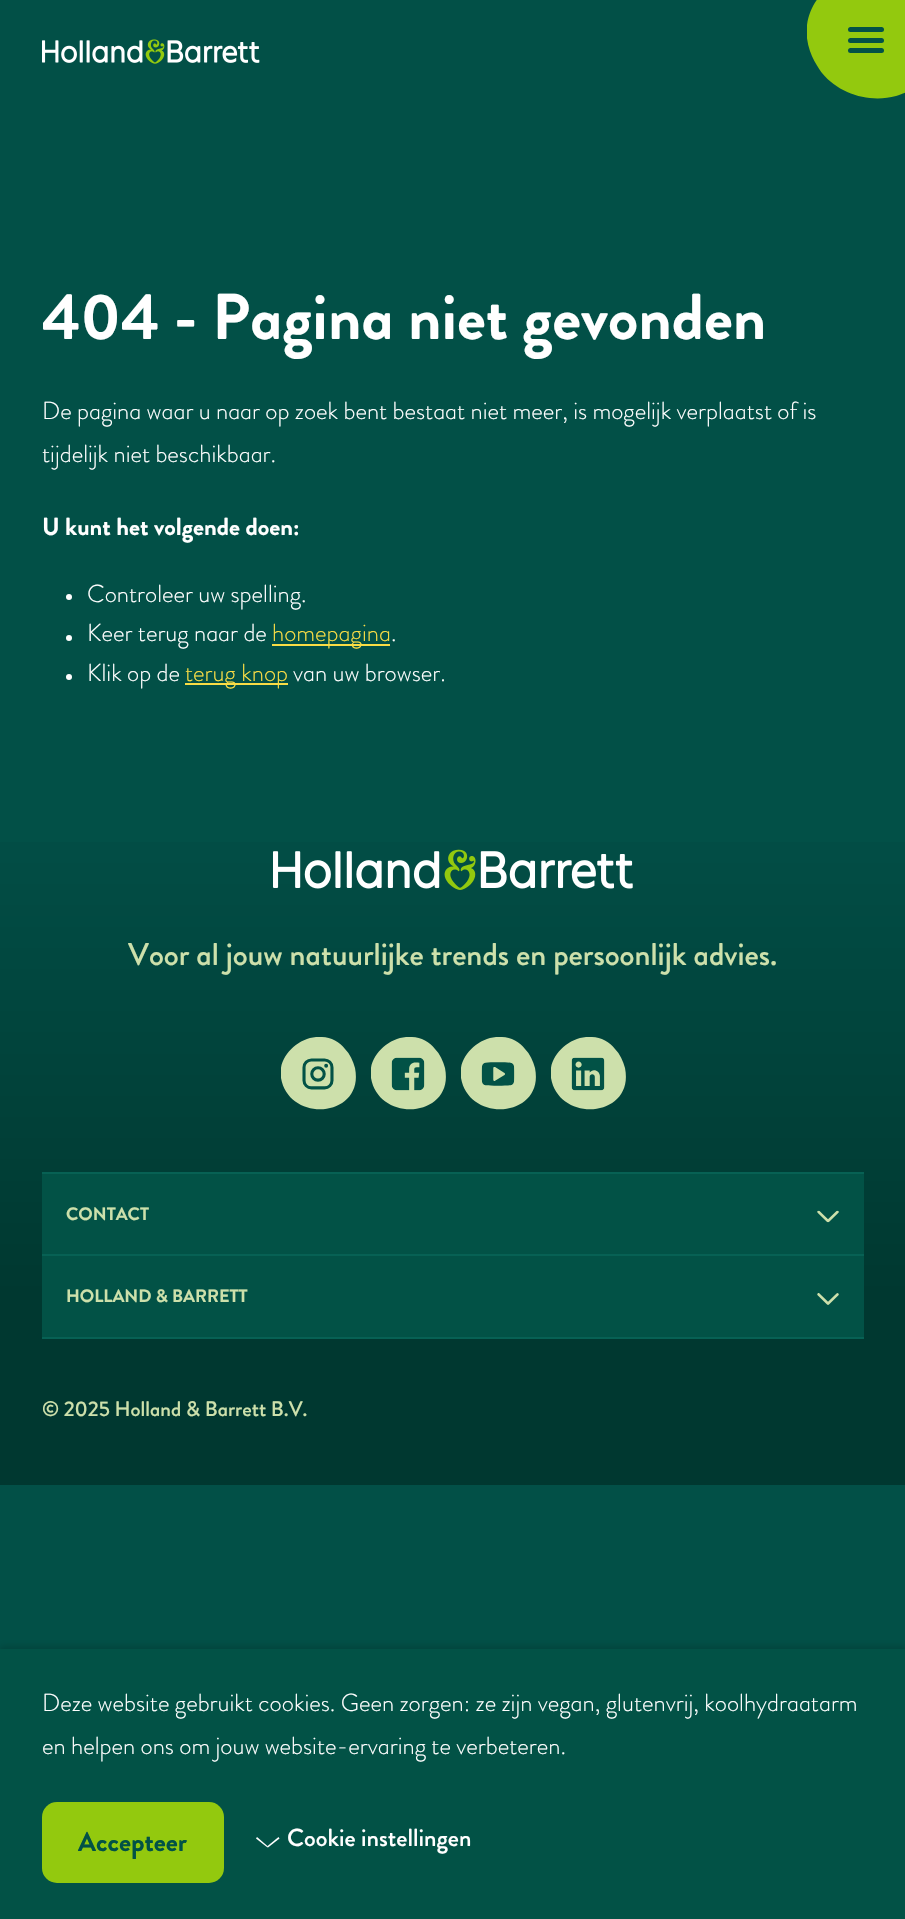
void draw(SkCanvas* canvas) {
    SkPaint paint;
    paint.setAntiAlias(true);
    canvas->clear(0xFF025047);
    canvas->save();
    canvas->clipRect(SkRect::MakeXYWH(807, 0, 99, 99));
    paint.setColor(0xFF93C90E);
    canvas->drawPath(SkPathBuilder().moveTo(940, 23).cubicTo(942, 29, 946, 52, 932, 72).cubicTo(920, 89, 902, 94, 896, 96).cubicTo(871, 103, 840, 95, 822, 73).cubicTo(819, 68, 804, 50, 807, 25).cubicTo(811, -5, 837, -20, 845, -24).cubicTo(850, -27, 868, -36, 890, -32).cubicTo(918, -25, 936, 0, 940, 23).close().detach(), paint);
    canvas->restore();
    canvas->drawImageRect(SkImages::DeferredFromEncodedData(SkData::MakeFromFileName("img1.png")), SkRect::MakeXYWH(42, 39, 218, 25), SkSamplingOptions());
    paint.setColor(0xFF025246);
    canvas->drawRoundRect(SkRect::MakeXYWH(848, 38, 36, 5), 2.5f, 2.5f, paint);
    canvas->drawRoundRect(SkRect::MakeXYWH(848, 27, 36, 5), 2.5f, 2.5f, paint);
    canvas->drawRoundRect(SkRect::MakeXYWH(848, 48, 36, 5), 2.5f, 2.5f, paint);
    SkFont font1(fontMgr->matchFamilyStyle("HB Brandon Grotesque", SkFontStyle::Bold()), 64.6f);
    font1.setSubpixel(true);
    paint.setColor(0xFFFFFFFF);
    canvas->drawString("404 - Pagina niet gevonden", 42, 339, font1, paint);
    SkFont font2(fontMgr->matchFamilyStyle("HB Brandon Grotesque", SkFontStyle(300, SkFontStyle::kNormal_Width, SkFontStyle::kUpright_Slant)), 24.6f);
    font2.setSubpixel(true);
    canvas->drawString("De pagina waar u naar op zoek bent bestaat niet meer, is mogelijk verplaatst of is", 42, 419, font2, paint);
    canvas->drawString("tijdelijk niet beschikbaar.", 42, 462, font2, paint);
    SkFont font3(fontMgr->matchFamilyStyle("HB Brandon Grotesque", SkFontStyle::Bold()), 24.6f);
    font3.setSubpixel(true);
    canvas->drawString("U kunt het volgende doen:", 42, 535, font3, paint);
    canvas->drawCircle(69, 597, 3, paint);
    canvas->drawString("Controleer uw spelling.", 87, 602, font2, paint);
    canvas->drawCircle(69, 638, 3, paint);
    canvas->drawString("Keer terug naar de", 87, 641, font2, paint);
    paint.setColor(0xFFF9DD45);
    canvas->drawRect(SkRect::MakeXYWH(272, 644, 118, 2), paint);
    canvas->drawString("homepagina", 272, 641, font2, paint);
    paint.setColor(0xFFFFFFFF);
    canvas->drawString(".", 391, 641, font2, paint);
    canvas->drawCircle(69, 677, 3, paint);
    canvas->drawString("Klik op de", 87, 681, font2, paint);
    paint.setColor(0xFFF9DD45);
    canvas->drawRect(SkRect::MakeXYWH(185, 683, 103, 2), paint);
    canvas->drawString("terug knop", 185, 681, font2, paint);
    paint.setColor(0xFFFFFFFF);
    canvas->drawString("van uw browser.", 293, 681, font2, paint);
    {
        const SkColor colors[] = {0xFF025048, 0xFF003830};
        const float stops[] = {0, 0.73f};
        const SkPoint ends[] = {{453, 789}, {453, 1485}};
        paint.setShader(SkGradientShader::MakeLinear(ends, colors, stops, 2, SkTileMode::kClamp));
        paint.setAlpha(255);
    }
    canvas->drawRect(SkRect::MakeXYWH(0, 842, 905, 643), paint);
    canvas->drawImageRect(SkImages::DeferredFromEncodedData(SkData::MakeFromFileName("img2.png")), SkRect::MakeXYWH(273, 849, 360, 41), SkSamplingOptions());
    SkFont font4(fontMgr->matchFamilyStyle("HB Brandon Grotesque", SkFontStyle(500, SkFontStyle::kNormal_Width, SkFontStyle::kUpright_Slant)), 31.5f);
    font4.setSubpixel(true);
    paint.setShader(nullptr);
    paint.setColor(0xFFCDE0AB);
    canvas->drawString("Voor al jouw natuurlijke trends en persoonlijk advies.", 128, 965, font4, paint);
    canvas->save();
    canvas->clipRect(SkRect::MakeXYWH(281, 1037, 75, 73));
    canvas->drawPath(SkPathBuilder().moveTo(355, 1068).cubicTo(365, 1118, 289, 1124, 281, 1078).cubicTo(277, 1056, 300, 1035, 322, 1037).cubicTo(331, 1037, 340, 1042, 345, 1049).cubicTo(350, 1054, 353, 1061, 355, 1068).close().detach(), paint);
    canvas->restore();
    canvas->drawImageRect(SkImages::DeferredFromEncodedData(SkData::MakeFromFileName("img3.png")), SkRect::MakeXYWH(302, 1058, 32, 32), SkSamplingOptions());
    canvas->save();
    canvas->clipRect(SkRect::MakeXYWH(371, 1037, 75, 73));
    canvas->drawPath(SkPathBuilder().moveTo(445, 1068).cubicTo(455, 1118, 379, 1124, 371, 1078).cubicTo(367, 1056, 390, 1035, 412, 1037).cubicTo(421, 1037, 430, 1042, 435, 1049).cubicTo(440, 1054, 443, 1061, 445, 1068).close().detach(), paint);
    canvas->restore();
    canvas->drawImageRect(SkImages::DeferredFromEncodedData(SkData::MakeFromFileName("img4.png")), SkRect::MakeXYWH(391, 1057, 34, 34), SkSamplingOptions());
    canvas->save();
    canvas->clipRect(SkRect::MakeXYWH(461, 1037, 75, 73));
    canvas->drawPath(SkPathBuilder().moveTo(535, 1068).cubicTo(545, 1118, 469, 1124, 461, 1078).cubicTo(457, 1056, 480, 1035, 502, 1037).cubicTo(511, 1037, 520, 1042, 525, 1049).cubicTo(530, 1054, 533, 1061, 535, 1068).close().detach(), paint);
    canvas->restore();
    canvas->drawImageRect(SkImages::DeferredFromEncodedData(SkData::MakeFromFileName("img5.png")), SkRect::MakeXYWH(481, 1062, 34, 24), SkSamplingOptions());
    canvas->save();
    canvas->clipRect(SkRect::MakeXYWH(551, 1037, 75, 73));
    canvas->drawPath(SkPathBuilder().moveTo(625, 1068).cubicTo(635, 1118, 559, 1124, 551, 1078).cubicTo(547, 1056, 570, 1035, 592, 1037).cubicTo(601, 1037, 610, 1042, 615, 1049).cubicTo(620, 1054, 623, 1061, 625, 1068).close().detach(), paint);
    canvas->restore();
    canvas->drawImageRect(SkImages::DeferredFromEncodedData(SkData::MakeFromFileName("img6.png")), SkRect::MakeXYWH(571, 1057, 34, 34), SkSamplingOptions());
    paint.setColor(0xFF025246);
    canvas->drawRect(SkRect::MakeXYWH(42, 1174, 822, 80), paint);
    paint.setColor(0xFF076154);
    canvas->drawRect(SkRect::MakeXYWH(42, 1172, 822, 2), paint);
    canvas->drawRect(SkRect::MakeXYWH(42, 1254, 822, 2), paint);
    SkFont font5(fontMgr->matchFamilyStyle("HB Brandon Grotesque", SkFontStyle::Bold()), 18);
    font5.setSubpixel(true);
    paint.setColor(0xFFCDE0AB);
    canvas->drawString("CONTACT", 66, 1220, font5, paint);
    canvas->drawImageRect(SkImages::DeferredFromEncodedData(SkData::MakeFromFileName("img7.png")), SkRect::MakeXYWH(817, 1210, 22, 13), SkSamplingOptions());
    paint.setColor(0xFF025246);
    canvas->drawRect(SkRect::MakeXYWH(42, 1256, 822, 81), paint);
    paint.setColor(0xFF076154);
    canvas->drawRect(SkRect::MakeXYWH(42, 1337, 822, 2), paint);
    paint.setColor(0xFFCDE0AB);
    canvas->drawString("HOLLAND & BARRETT", 66, 1302, font5, paint);
    canvas->drawImageRect(SkImages::DeferredFromEncodedData(SkData::MakeFromFileName("img8.png")), SkRect::MakeXYWH(817, 1293, 22, 12), SkSamplingOptions());
    SkFont font6(fontMgr->matchFamilyStyle("HB Brandon Grotesque", SkFontStyle(500, SkFontStyle::kNormal_Width, SkFontStyle::kUpright_Slant)), 21);
    font6.setSubpixel(true);
    canvas->drawString("© 2025 Holland & Barrett B.V.", 42, 1416, font6, paint);
    paint.setColor(0x26000000);
    paint.setMaskFilter(SkMaskFilter::MakeBlur(kNormal_SkBlurStyle, 3));
    canvas->drawRect(SkRect::MakeXYWH(0, 1646, 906, 271), paint);
    paint.setMaskFilter(nullptr);
    paint.setColor(0xFF025246);
    canvas->drawRect(SkRect::MakeXYWH(0, 1649, 905, 270), paint);
    paint.setColor(0xFFFFFFFF);
    canvas->drawString("Deze website gebruikt cookies. Geen zorgen: ze zijn vegan, glutenvrij, koolhydraatarm", 42, 1711, font2, paint);
    canvas->drawString("en helpen ons om jouw website-ervaring te verbeteren.", 42, 1754, font2, paint);
    paint.setColor(0xFF93C90E);
    canvas->drawRoundRect(SkRect::MakeXYWH(42, 1802, 182, 81), 15, 15, paint);
    SkFont font7(fontMgr->matchFamilyStyle("HB Brandon Grotesque", SkFontStyle::Bold()), 27);
    font7.setSubpixel(true);
    paint.setColor(0xFF025246);
    canvas->drawString("Accepteer", 78, 1851, font7, paint);
    paint.setColor(0xFFFFFFFF);
    canvas->drawPath(SkPathBuilder().moveTo(257, 1837).lineTo(268, 1846.5f).lineTo(267.5f, 1847.5f).lineTo(256, 1838.5f).close().detach(), paint);
    canvas->drawPath(SkPathBuilder().moveTo(267, 1846.5f).lineTo(278.5f, 1837).lineTo(279.5f, 1838.5f).lineTo(268, 1847.5f).close().detach(), paint);
    SkFont font8(fontMgr->matchFamilyStyle("HB Brandon Grotesque", SkFontStyle(500, SkFontStyle::kNormal_Width, SkFontStyle::kUpright_Slant)), 24.6f);
    font8.setSubpixel(true);
    canvas->drawString("Cookie instellingen", 287, 1846, font8, paint);
}
